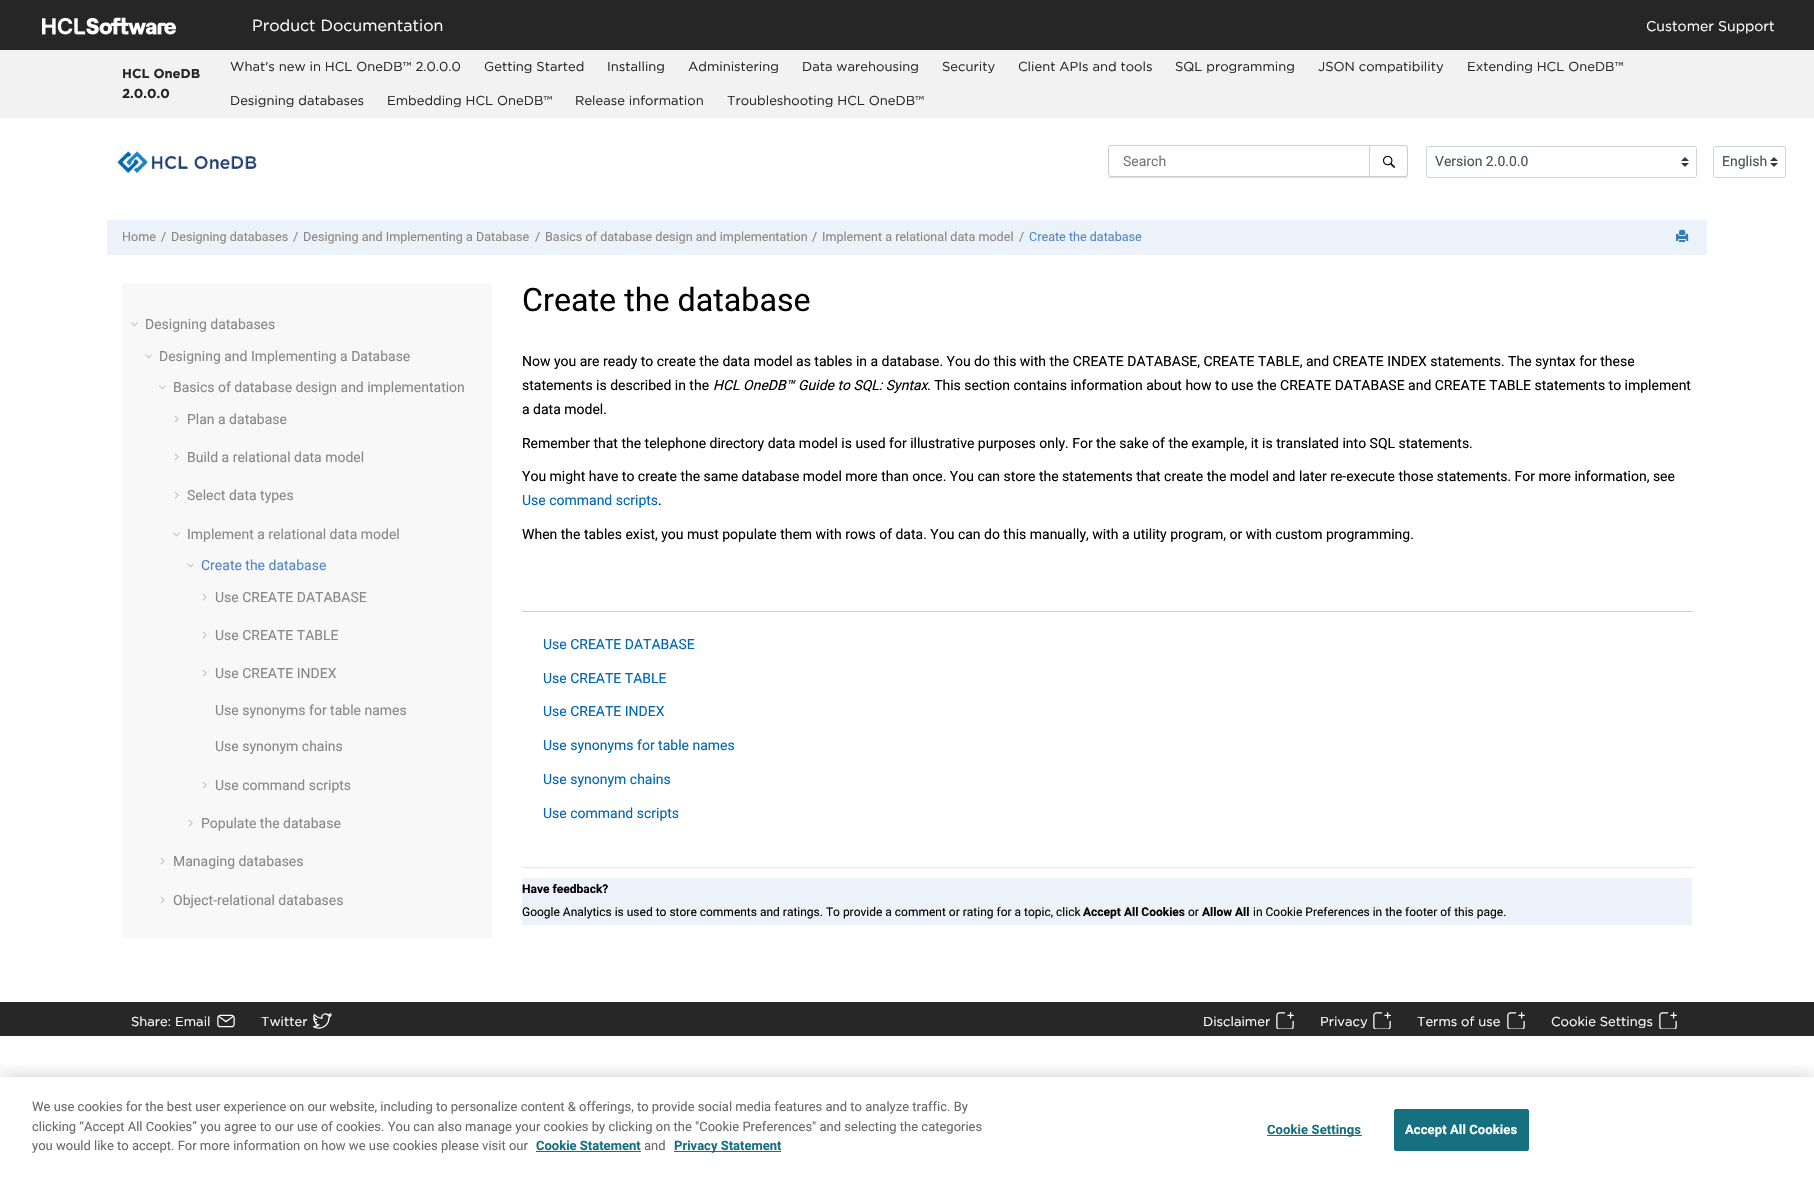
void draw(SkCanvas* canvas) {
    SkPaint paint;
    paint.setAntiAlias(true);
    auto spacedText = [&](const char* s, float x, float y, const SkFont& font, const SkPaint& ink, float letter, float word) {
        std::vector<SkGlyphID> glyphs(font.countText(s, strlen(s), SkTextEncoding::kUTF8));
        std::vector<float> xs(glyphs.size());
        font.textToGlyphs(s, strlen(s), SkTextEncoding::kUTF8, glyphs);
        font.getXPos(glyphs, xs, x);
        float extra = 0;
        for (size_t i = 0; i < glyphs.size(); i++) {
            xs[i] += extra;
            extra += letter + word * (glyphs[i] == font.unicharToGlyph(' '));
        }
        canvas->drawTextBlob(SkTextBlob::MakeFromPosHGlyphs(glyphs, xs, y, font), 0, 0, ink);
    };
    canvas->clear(0xFFFFFFFF);
    paint.setColor(0xFF262626);
    canvas->drawRect(SkRect::MakeXYWH(0, 0, 1814, 50), paint);
    canvas->drawImageRect(SkImages::DeferredFromEncodedData(SkData::MakeFromFileName("img1.png")), SkRect::MakeXYWH(42, 17, 134, 18), SkSamplingOptions());
    SkFont font1(fontMgr->matchFamilyStyle("Gotham", SkFontStyle::Normal()), 16);
    font1.setSubpixel(true);
    paint.setColor(0xFFFFFFFF);
    canvas->drawString("Product Documentation", 252, 31, font1, paint);
    SkFont font2(fontMgr->matchFamilyStyle("Gotham", SkFontStyle::Normal()), 14);
    font2.setSubpixel(true);
    canvas->drawString("Customer Support", 1646, 31, font2, paint);
    paint.setColor(0xFFF2F2F2);
    canvas->drawRect(SkRect::MakeXYWH(0, 50, 1814, 68), paint);
    SkFont font3(fontMgr->matchFamilyStyle("Gotham", SkFontStyle::Bold()), 13);
    font3.setSubpixel(true);
    paint.setColor(0xFF262626);
    canvas->drawString("HCL OneDB", 122, 78, font3, paint);
    canvas->drawString("2.0.0.0", 122, 98, font3, paint);
    SkFont font4(fontMgr->matchFamilyStyle("Gotham", SkFontStyle::Normal()), 13);
    font4.setSubpixel(true);
    canvas->drawString("What's new in HCL OneDB™ 2.0.0.0", 230, 71, font4, paint);
    canvas->drawString("Getting Started", 484, 71, font4, paint);
    canvas->drawString("Installing", 607, 71, font4, paint);
    canvas->drawString("Administering", 688, 71, font4, paint);
    canvas->drawString("Data warehousing", 802, 71, font4, paint);
    canvas->drawString("Security", 942, 71, font4, paint);
    canvas->drawString("Client APIs and tools", 1018, 71, font4, paint);
    canvas->drawString("SQL programming", 1175, 71, font4, paint);
    canvas->drawString("JSON compatibility", 1318, 71, font4, paint);
    canvas->drawString("Extending HCL OneDB™", 1467, 71, font4, paint);
    canvas->drawString("Designing databases", 230, 105, font4, paint);
    canvas->drawString("Embedding HCL OneDB™", 387, 105, font4, paint);
    canvas->drawString("Release information", 575, 105, font4, paint);
    canvas->drawString("Troubleshooting HCL OneDB™", 727, 105, font4, paint);
    canvas->drawImageRect(SkImages::DeferredFromEncodedData(SkData::MakeFromFileName("img2.png")), SkRect::MakeXYWH(117, 151, 140, 23), SkSamplingOptions());
    paint.setColor(0xFFDEE5E7);
    canvas->drawRect(SkRect::MakeXYWH(1108, 177, 300, 1), paint);
    paint.setStyle(SkPaint::kStroke_Style);
    paint.setStrokeWidth(1);
    paint.setColor(0xFFCCCCCC);
    canvas->drawRoundRect(SkRect::MakeXYWH(1108.5f, 145.5f, 299, 31), 2.5f, 2.5f, paint);
    SkFont font5(fontMgr->matchFamilyStyle("Roboto", SkFontStyle::Normal()), 14);
    font5.setSubpixel(true);
    paint.setStyle(SkPaint::kFill_Style);
    paint.setColor(0xFF757575);
    canvas->drawString("Search", 1123, 166, font5, paint);
    paint.setColor(0xFFFFFFFF);
    canvas->drawPath(SkPathBuilder().moveTo(1369.5f, 145.5f).lineTo(1405, 145.5f).cubicTo(1406.5f, 145.5f, 1407.5f, 146.5f, 1407.5f, 148).lineTo(1407.5f, 174).cubicTo(1407.5f, 175.5f, 1406.5f, 176.5f, 1405, 176.5f).lineTo(1369.5f, 176.5f).close().detach(), paint);
    paint.setStyle(SkPaint::kStroke_Style);
    paint.setColor(0xFFCCCCCC);
    canvas->drawPath(SkPathBuilder().moveTo(1369.5f, 145.5f).lineTo(1405, 145.5f).cubicTo(1406.5f, 145.5f, 1407.5f, 146.5f, 1407.5f, 148).lineTo(1407.5f, 174).cubicTo(1407.5f, 175.5f, 1406.5f, 176.5f, 1405, 176.5f).lineTo(1369.5f, 176.5f).close().detach(), paint);
    canvas->drawImageRect(SkImages::DeferredFromEncodedData(SkData::MakeFromFileName("img3.png")), SkRect::MakeXYWH(1382, 155, 14, 13), SkSamplingOptions());
    canvas->drawImageRect(SkImages::DeferredFromEncodedData(SkData::MakeFromFileName("img4.png")), SkRect::MakeXYWH(1681, 157, 8, 10), SkSamplingOptions());
    paint.setColor(0xFFCED4DA);
    canvas->drawRoundRect(SkRect::MakeXYWH(1426.5f, 146.5f, 270, 31), 2, 2, paint);
    paint.setStyle(SkPaint::kFill_Style);
    paint.setColor(0xFF495057);
    canvas->drawString("Version 2.0.0.0", 1435, 166, font5, paint);
    canvas->drawImageRect(SkImages::DeferredFromEncodedData(SkData::MakeFromFileName("img4.png")), SkRect::MakeXYWH(1770, 157, 8, 10), SkSamplingOptions());
    paint.setStyle(SkPaint::kStroke_Style);
    paint.setColor(0xFFCED4DA);
    canvas->drawRoundRect(SkRect::MakeXYWH(1713.5f, 146.5f, 72, 31), 2, 2, paint);
    paint.setStyle(SkPaint::kFill_Style);
    paint.setColor(0xFF495057);
    canvas->drawString("English", 1722, 166, font5, paint);
    paint.setColor(0xFFECF2F9);
    canvas->drawRect(SkRect::MakeXYWH(107, 220, 1600, 35), paint);
    SkFont font6(fontMgr->matchFamilyStyle("Roboto", SkFontStyle::Normal()), 12.6f);
    font6.setSubpixel(true);
    paint.setColor(0xFF878787);
    canvas->drawString("Home", 122, 241, font6, paint);
    canvas->drawString("/", 161, 241, font6, paint);
    canvas->drawString("Designing databases", 171, 241, font6, paint);
    canvas->drawString("/", 293, 241, font6, paint);
    canvas->drawString("Designing and Implementing a Database", 303, 241, font6, paint);
    canvas->drawString("/", 535, 241, font6, paint);
    canvas->drawString("Basics of database design and implementation", 545, 241, font6, paint);
    canvas->drawString("/", 812, 241, font6, paint);
    canvas->drawString("Implement a relational data model", 822, 241, font6, paint);
    canvas->drawString("/", 1019, 241, font6, paint);
    paint.setColor(0xFF5185CB);
    canvas->drawString("Create the database", 1029, 241, font6, paint);
    canvas->drawImageRect(SkImages::DeferredFromEncodedData(SkData::MakeFromFileName("img5.png")), SkRect::MakeXYWH(1676, 229, 13, 13), SkSamplingOptions());
    paint.setColor(0xFFF8F8F8);
    canvas->drawRoundRect(SkRect::MakeXYWH(122, 283, 370, 655), 3, 3, paint);
    canvas->drawImageRect(SkImages::DeferredFromEncodedData(SkData::MakeFromFileName("img6.png")), SkRect::MakeXYWH(131, 322, 7, 5), SkSamplingOptions());
    paint.setColor(0xFF878787);
    canvas->drawString("Designing databases", 145, 329, font5, paint);
    canvas->drawImageRect(SkImages::DeferredFromEncodedData(SkData::MakeFromFileName("img6.png")), SkRect::MakeXYWH(145, 354, 7, 5), SkSamplingOptions());
    canvas->drawString("Designing and Implementing a Database", 159, 361, font5, paint);
    canvas->drawImageRect(SkImages::DeferredFromEncodedData(SkData::MakeFromFileName("img6.png")), SkRect::MakeXYWH(159, 385, 7, 5), SkSamplingOptions());
    canvas->drawString("Basics of database design and implementation", 173, 392, font5, paint);
    canvas->drawImageRect(SkImages::DeferredFromEncodedData(SkData::MakeFromFileName("img7.png")), SkRect::MakeXYWH(174, 415, 5, 8), SkSamplingOptions());
    canvas->drawString("Plan a database", 187, 424, font5, paint);
    canvas->drawImageRect(SkImages::DeferredFromEncodedData(SkData::MakeFromFileName("img7.png")), SkRect::MakeXYWH(174, 453, 5, 8), SkSamplingOptions());
    canvas->drawString("Build a relational data model", 187, 462, font5, paint);
    canvas->drawImageRect(SkImages::DeferredFromEncodedData(SkData::MakeFromFileName("img7.png")), SkRect::MakeXYWH(174, 491, 5, 8), SkSamplingOptions());
    canvas->drawString("Select data types", 187, 500, font5, paint);
    canvas->drawImageRect(SkImages::DeferredFromEncodedData(SkData::MakeFromFileName("img6.png")), SkRect::MakeXYWH(173, 532, 7, 5), SkSamplingOptions());
    canvas->drawString("Implement a relational data model", 187, 539, font5, paint);
    canvas->drawImageRect(SkImages::DeferredFromEncodedData(SkData::MakeFromFileName("img6.png")), SkRect::MakeXYWH(187, 563, 7, 5), SkSamplingOptions());
    paint.setColor(0xFF5185CB);
    canvas->drawString("Create the database", 201, 570, font5, paint);
    canvas->drawImageRect(SkImages::DeferredFromEncodedData(SkData::MakeFromFileName("img7.png")), SkRect::MakeXYWH(202, 593, 5, 8), SkSamplingOptions());
    paint.setColor(0xFF878787);
    canvas->drawString("Use CREATE DATABASE", 215, 602, font5, paint);
    canvas->drawImageRect(SkImages::DeferredFromEncodedData(SkData::MakeFromFileName("img7.png")), SkRect::MakeXYWH(202, 631, 5, 8), SkSamplingOptions());
    canvas->drawString("Use CREATE TABLE", 215, 640, font5, paint);
    canvas->drawImageRect(SkImages::DeferredFromEncodedData(SkData::MakeFromFileName("img7.png")), SkRect::MakeXYWH(202, 669, 5, 8), SkSamplingOptions());
    canvas->drawString("Use CREATE INDEX", 215, 678, font5, paint);
    canvas->drawString("Use synonyms for table names", 215, 715, font5, paint);
    canvas->drawString("Use synonym chains", 215, 751, font5, paint);
    canvas->drawImageRect(SkImages::DeferredFromEncodedData(SkData::MakeFromFileName("img7.png")), SkRect::MakeXYWH(202, 781, 5, 8), SkSamplingOptions());
    canvas->drawString("Use command scripts", 215, 790, font5, paint);
    canvas->drawImageRect(SkImages::DeferredFromEncodedData(SkData::MakeFromFileName("img7.png")), SkRect::MakeXYWH(188, 819, 5, 8), SkSamplingOptions());
    canvas->drawString("Populate the database", 201, 828, font5, paint);
    canvas->drawImageRect(SkImages::DeferredFromEncodedData(SkData::MakeFromFileName("img7.png")), SkRect::MakeXYWH(160, 857, 5, 8), SkSamplingOptions());
    canvas->drawString("Managing databases", 173, 866, font5, paint);
    canvas->drawImageRect(SkImages::DeferredFromEncodedData(SkData::MakeFromFileName("img7.png")), SkRect::MakeXYWH(160, 896, 5, 8), SkSamplingOptions());
    canvas->drawString("Object-relational databases", 173, 905, font5, paint);
    SkFont font7(fontMgr->matchFamilyStyle("Roboto", SkFontStyle::Normal()), 32.25f);
    font7.setSubpixel(true);
    paint.setColor(0xFF000000);
    canvas->drawString("Create the database", 522, 311, font7, paint);
    canvas->drawString("Now you are ready to create the data model as tables in a database. You do this with the CREATE DATABASE, CREATE TABLE, and CREATE INDEX statements. The syntax for these", 522, 366, font5, paint);
    canvas->drawString("statements is described in the", 522, 390, font5, paint);
    SkFont font8(fontMgr->matchFamilyStyle("Roboto", SkFontStyle::Italic()), 14);
    font8.setSubpixel(true);
    canvas->drawString("HCL OneDB™ Guide to SQL: Syntax", 713, 390, font8, paint);
    canvas->drawString(". This section contains information about how to use the CREATE DATABASE and CREATE TABLE statements to implement", 927, 390, font5, paint);
    canvas->drawString("a data model.", 522, 414, font5, paint);
    canvas->drawString("Remember that the telephone directory data model is used for illustrative purposes only. For the sake of the example, it is translated into SQL statements.", 522, 448, font5, paint);
    canvas->drawString("You might have to create the same database model more than once. You can store the statements that create the model and later re-execute those statements. For more information, see", 522, 481, font5, paint);
    paint.setColor(0xFF0066B3);
    canvas->drawString("Use command scripts", 522, 505, font5, paint);
    paint.setColor(0xFF000000);
    canvas->drawString(".", 658, 505, font5, paint);
    canvas->drawString("When the tables exist, you must populate them with rows of data. You can do this manually, with a utility program, or with custom programming.", 522, 539, font5, paint);
    paint.setColor(0xFFCCCCCC);
    canvas->drawRect(SkRect::MakeXYWH(522, 611, 1170, 1), paint);
    paint.setColor(0xFF0066B3);
    canvas->drawString("Use CREATE DATABASE", 543, 649, font5, paint);
    canvas->drawString("Use CREATE TABLE", 543, 683, font5, paint);
    canvas->drawString("Use CREATE INDEX", 543, 716, font5, paint);
    canvas->drawString("Use synonyms for table names", 543, 750, font5, paint);
    canvas->drawString("Use synonym chains", 543, 784, font5, paint);
    canvas->drawString("Use command scripts", 543, 818, font5, paint);
    paint.setColor(0xFFE6E6E6);
    canvas->drawRect(SkRect::MakeXYWH(522, 867, 1170, 1), paint);
    paint.setColor(0xFFECF2F9);
    canvas->drawRect(SkRect::MakeXYWH(522, 878, 1170, 47), paint);
    SkFont font9(fontMgr->matchFamilyStyle("Roboto", SkFontStyle::Bold()), 12);
    font9.setSubpixel(true);
    paint.setColor(0xFF000000);
    canvas->drawString("Have feedback?", 522, 893, font9, paint);
    SkFont font10(fontMgr->matchFamilyStyle("Roboto", SkFontStyle::Normal()), 12);
    font10.setSubpixel(true);
    canvas->drawString("Google Analytics is used to store comments and ratings. To provide a comment or rating for a topic, click", 522, 916, font10, paint);
    canvas->drawString("Accept All Cookies", 1083, 916, font9, paint);
    canvas->drawString("or", 1188, 916, font10, paint);
    canvas->drawString("Allow All", 1202, 916, font9, paint);
    canvas->drawString("in Cookie Preferences in the footer of this page.", 1253, 916, font10, paint);
    paint.setColor(0xFF272727);
    canvas->drawRect(SkRect::MakeXYWH(0, 1002, 1814, 34), paint);
    paint.setColor(0xFFFFFFFF);
    canvas->drawString("Share: Email", 131, 1026, font4, paint);
    canvas->drawImageRect(SkImages::DeferredFromEncodedData(SkData::MakeFromFileName("img8.png")), SkRect::MakeXYWH(217, 1014, 18, 14), SkSamplingOptions());
    canvas->drawString("Twitter", 261, 1026, font4, paint);
    canvas->drawImageRect(SkImages::DeferredFromEncodedData(SkData::MakeFromFileName("img9.png")), SkRect::MakeXYWH(313, 1012, 19, 17), SkSamplingOptions());
    canvas->drawString("Disclaimer", 1203, 1026, font4, paint);
    canvas->drawImageRect(SkImages::DeferredFromEncodedData(SkData::MakeFromFileName("img10.png")), SkRect::MakeXYWH(1276, 1012, 18, 17), SkSamplingOptions());
    canvas->drawString("Privacy", 1320, 1026, font4, paint);
    canvas->drawImageRect(SkImages::DeferredFromEncodedData(SkData::MakeFromFileName("img10.png")), SkRect::MakeXYWH(1373, 1012, 18, 17), SkSamplingOptions());
    canvas->drawString("Terms of use", 1417, 1026, font4, paint);
    canvas->drawImageRect(SkImages::DeferredFromEncodedData(SkData::MakeFromFileName("img10.png")), SkRect::MakeXYWH(1507, 1012, 18, 17), SkSamplingOptions());
    canvas->drawString("Cookie Settings", 1551, 1026, font4, paint);
    canvas->drawImageRect(SkImages::DeferredFromEncodedData(SkData::MakeFromFileName("img10.png")), SkRect::MakeXYWH(1659, 1012, 18, 17), SkSamplingOptions());
    canvas->save();
    canvas->clipRect(SkRect::MakeXYWH(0, 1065, 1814, 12));
    paint.setColor(0x33000000);
    paint.setMaskFilter(SkMaskFilter::MakeBlur(kNormal_SkBlurStyle, 9));
    canvas->drawRect(SkRect::MakeXYWH(0, 1077, 1814, 102), paint);
    paint.setMaskFilter(nullptr);
    canvas->restore();
    SkFont font11(fontMgr->matchFamilyStyle("Roboto", SkFontStyle::Normal()), 13);
    font11.setSubpixel(true);
    paint.setColor(0xFF696969);
    canvas->drawString("We use cookies for the best user experience on our website, including to personalize content & offerings, to provide social media features and to analyze traffic. By", 32, 1111, font11, paint);
    canvas->drawString("clicking “Accept All Cookies” you agree to our use of cookies. You can also manage your cookies by clicking on the \"Cookie Preferences\" and selecting the categories", 32, 1131, font11, paint);
    canvas->drawString("you would like to accept. For more information on how we use cookies please visit our", 32, 1150, font11, paint);
    SkFont font12(fontMgr->matchFamilyStyle("Roboto", SkFontStyle::Bold()), 13);
    font12.setSubpixel(true);
    paint.setColor(0xFF17707F);
    canvas->drawString("Cookie Statement", 536, 1150, font12, paint);
    canvas->drawRect(SkRect::MakeXYWH(536, 1151, 105, 1), paint);
    paint.setColor(0xFF696969);
    canvas->drawString("and", 644, 1150, font11, paint);
    paint.setColor(0xFF17707F);
    canvas->drawRect(SkRect::MakeXYWH(674, 1151, 107, 1), paint);
    canvas->drawString("Privacy Statement", 674, 1150, font12, paint);
    canvas->drawRect(SkRect::MakeXYWH(1267, 1135, 95, 1), paint);
    spacedText("Cookie Settings", 1267, 1134, font12, paint, 0.1f, 0);
    canvas->drawRoundRect(SkRect::MakeXYWH(1394.5f, 1109.5f, 134, 41), 1.5f, 1.5f, paint);
    paint.setStyle(SkPaint::kStroke_Style);
    canvas->drawRoundRect(SkRect::MakeXYWH(1394.5f, 1109.5f, 134, 41), 1.5f, 1.5f, paint);
    paint.setStyle(SkPaint::kFill_Style);
    paint.setColor(0xFFFFFFFF);
    spacedText("Accept All Cookies", 1405, 1134, font12, paint, 0.1f, 0);
}
